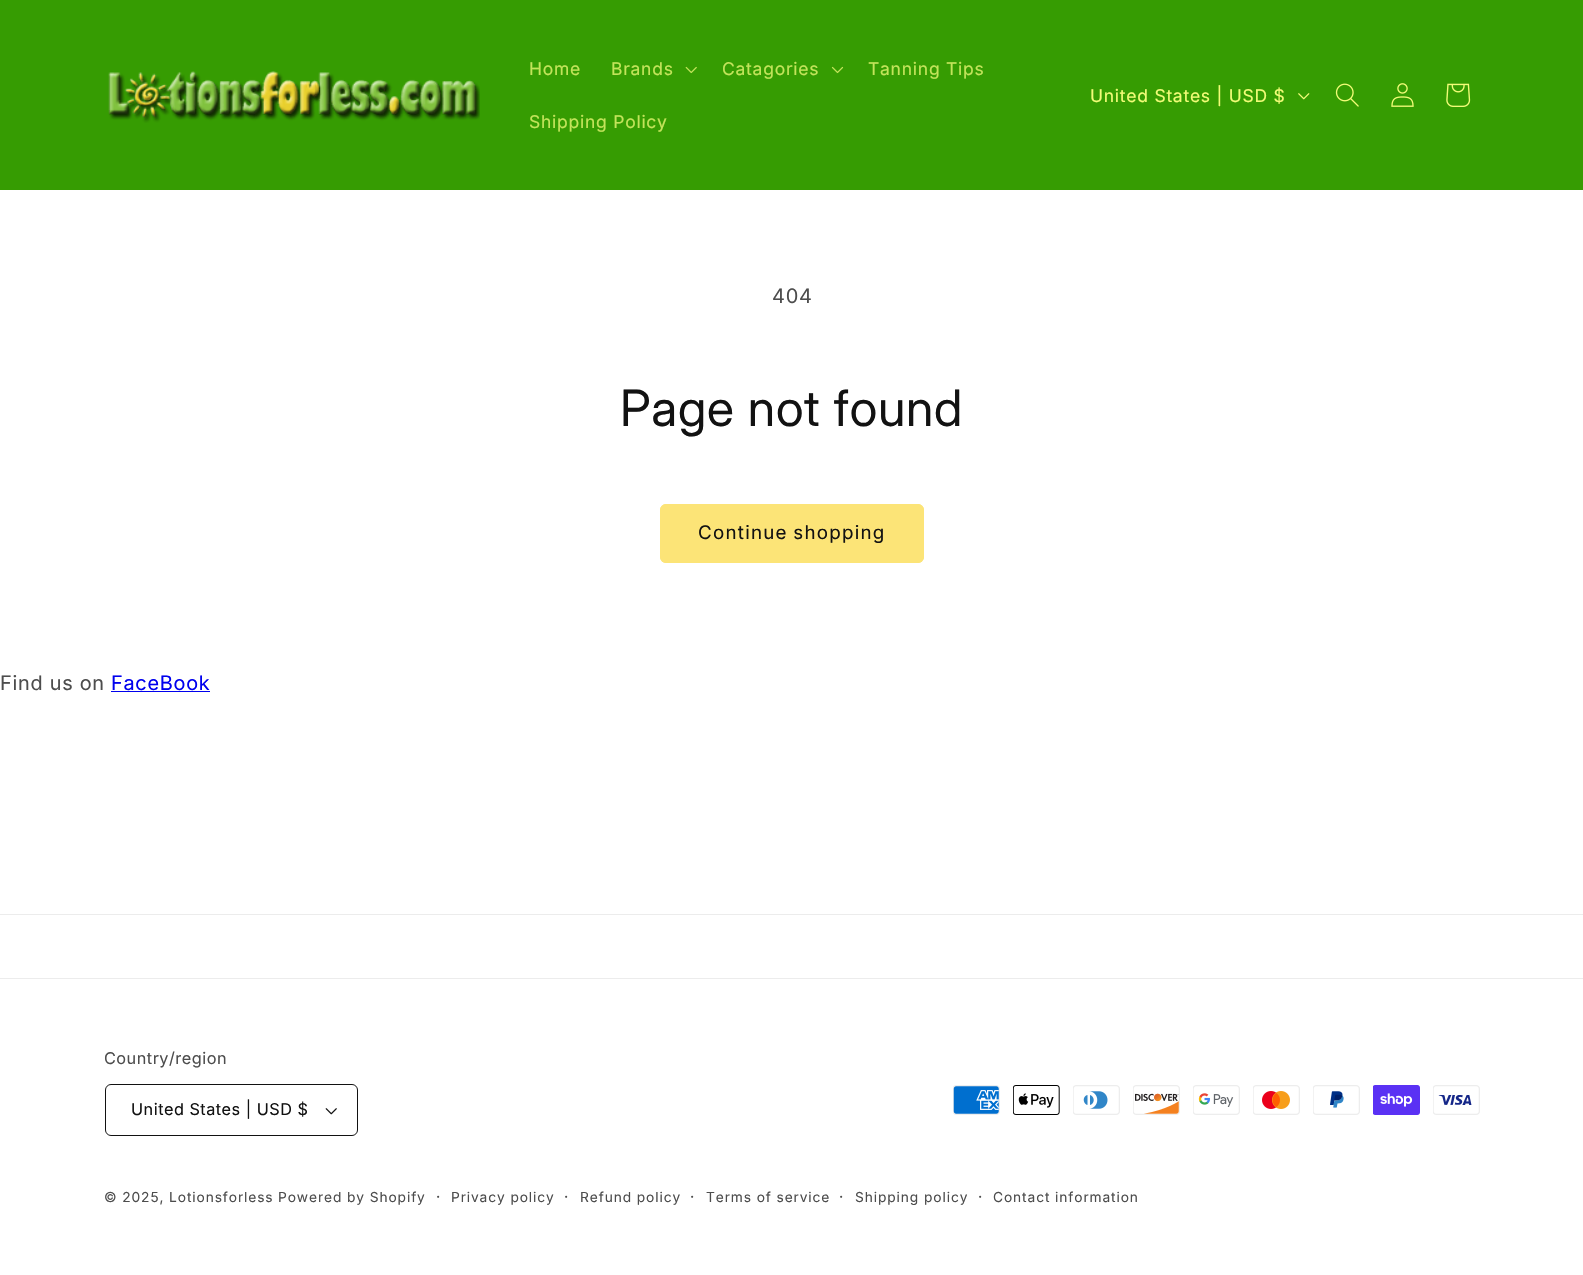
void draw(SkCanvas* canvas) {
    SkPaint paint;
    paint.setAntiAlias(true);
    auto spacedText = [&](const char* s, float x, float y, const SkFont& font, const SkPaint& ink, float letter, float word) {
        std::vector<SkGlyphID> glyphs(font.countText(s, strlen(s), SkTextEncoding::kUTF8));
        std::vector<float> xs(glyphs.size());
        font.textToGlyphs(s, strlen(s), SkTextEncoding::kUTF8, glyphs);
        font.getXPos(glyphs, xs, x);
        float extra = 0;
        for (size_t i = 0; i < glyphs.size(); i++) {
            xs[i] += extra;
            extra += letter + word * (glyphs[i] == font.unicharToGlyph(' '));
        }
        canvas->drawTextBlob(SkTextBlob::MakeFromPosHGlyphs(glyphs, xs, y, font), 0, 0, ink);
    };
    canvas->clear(0xFFFFFFFF);
    paint.setColor(0xFF369C02);
    canvas->drawRect(SkRect::MakeXYWH(0, 0, 1583, 190), paint);
    canvas->drawImageRect(SkImages::DeferredFromEncodedData(SkData::MakeFromFileName("img1.png")), SkRect::MakeXYWH(108, 71, 372, 52), SkSamplingOptions());
    SkFont font1(fontMgr->matchFamilyStyle("Inter", SkFontStyle::Normal()), 17.5f);
    font1.setSubpixel(true);
    paint.setColor(0xFFC3E45A);
    spacedText("Home", 529, 75, font1, paint, 0.75f, 0);
    spacedText("Brands", 611, 75, font1, paint, 0.75f, 0);
    canvas->drawImageRect(SkImages::DeferredFromEncodedData(SkData::MakeFromFileName("img2.png")), SkRect::MakeXYWH(685, 66, 12, 8), SkSamplingOptions());
    spacedText("Catagories", 722, 75, font1, paint, 0.75f, 0);
    canvas->drawImageRect(SkImages::DeferredFromEncodedData(SkData::MakeFromFileName("img3.png")), SkRect::MakeXYWH(831, 66, 13, 8), SkSamplingOptions());
    spacedText("Tanning Tips", 868, 75, font1, paint, 0.75f, 0);
    spacedText("Shipping Policy", 529, 128, font1, paint, 0.75f, 0);
    paint.setColor(0xFFF2FC77);
    spacedText("United States | USD $", 1090, 102, font1, paint, 0.75f, 0);
    canvas->drawImageRect(SkImages::DeferredFromEncodedData(SkData::MakeFromFileName("img4.png")), SkRect::MakeXYWH(1298, 93, 12, 7), SkSamplingOptions());
    canvas->drawImageRect(SkImages::DeferredFromEncodedData(SkData::MakeFromFileName("img5.png")), SkRect::MakeXYWH(1335, 83, 24, 24), SkSamplingOptions());
    canvas->drawImageRect(SkImages::DeferredFromEncodedData(SkData::MakeFromFileName("img6.png")), SkRect::MakeXYWH(1391, 83, 23, 24), SkSamplingOptions());
    canvas->drawImageRect(SkImages::DeferredFromEncodedData(SkData::MakeFromFileName("img7.png")), SkRect::MakeXYWH(1446, 83, 25, 24), SkSamplingOptions());
    SkFont font2(fontMgr->matchFamilyStyle("Inter", SkFontStyle::Normal()), 20);
    font2.setSubpixel(true);
    paint.setColor(0xFF4D4D4D);
    spacedText("404", 772, 303, font2, paint, 0.75f, 0);
    SkFont font3(fontMgr->matchFamilyStyle("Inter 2", SkFontStyle::Normal()), 50);
    font3.setSubpixel(true);
    paint.setColor(0xFF121212);
    spacedText("Page not found", 620, 426, font3, paint, 0.75f, 0);
    paint.setColor(0xFFFCE477);
    canvas->drawRoundRect(SkRect::MakeXYWH(660, 504, 264, 59), 6, 6, paint);
    paint.setStyle(SkPaint::kStroke_Style);
    paint.setStrokeWidth(1);
    canvas->drawRoundRect(SkRect::MakeXYWH(660.5f, 504.5f, 263, 58), 5.5f, 5.5f, paint);
    SkFont font4(fontMgr->matchFamilyStyle("Inter", SkFontStyle::Normal()), 18.75f);
    font4.setSubpixel(true);
    paint.setStyle(SkPaint::kFill_Style);
    paint.setColor(0xFF121212);
    spacedText("Continue shopping", 698, 539, font4, paint, 1.25f, -1);
    SkFont font5(fontMgr->matchFamilyStyle("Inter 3", SkFontStyle::Normal()), 20);
    font5.setSubpixel(true);
    paint.setColor(0xFF4D4D4D);
    spacedText("Find us on", 0, 690, font5, paint, 0.75f, 0);
    paint.setColor(0xFF0000EE);
    spacedText("FaceBook", 111, 690, font5, paint, 0.75f, 0);
    canvas->drawRect(SkRect::MakeXYWH(111, 691, 99, 1), paint);
    paint.setColor(0xFFECECEC);
    canvas->drawRect(SkRect::MakeXYWH(0, 914, 1583, 1), paint);
    canvas->drawRect(SkRect::MakeXYWH(0, 978, 1583, 1), paint);
    SkFont font6(fontMgr->matchFamilyStyle("Inter", SkFontStyle::Normal()), 16.25f);
    font6.setSubpixel(true);
    paint.setColor(0xFF4D4D4D);
    spacedText("Country/region", 104, 1064, font6, paint, 0.5f, 0);
    canvas->drawImageRect(SkImages::DeferredFromEncodedData(SkData::MakeFromFileName("img8.png")), SkRect::MakeXYWH(325, 1108, 12, 7), SkSamplingOptions());
    paint.setStyle(SkPaint::kStroke_Style);
    paint.setColor(0xFF121212);
    canvas->drawRoundRect(SkRect::MakeXYWH(105.5f, 1084.5f, 252, 51), 5.5f, 5.5f, paint);
    paint.setStyle(SkPaint::kFill_Style);
    spacedText("United States | USD $", 131, 1115, font6, paint, 0.5f, 0);
    canvas->drawImageRect(SkImages::DeferredFromEncodedData(SkData::MakeFromFileName("img9.png")), SkRect::MakeXYWH(953, 1085, 47, 30), SkSamplingOptions());
    canvas->drawImageRect(SkImages::DeferredFromEncodedData(SkData::MakeFromFileName("img10.png")), SkRect::MakeXYWH(1013, 1085, 47, 30), SkSamplingOptions());
    canvas->drawImageRect(SkImages::DeferredFromEncodedData(SkData::MakeFromFileName("img11.png")), SkRect::MakeXYWH(1073, 1085, 47, 30), SkSamplingOptions());
    canvas->drawImageRect(SkImages::DeferredFromEncodedData(SkData::MakeFromFileName("img12.png")), SkRect::MakeXYWH(1133, 1085, 47, 30), SkSamplingOptions());
    canvas->drawImageRect(SkImages::DeferredFromEncodedData(SkData::MakeFromFileName("img13.png")), SkRect::MakeXYWH(1193, 1085, 47, 30), SkSamplingOptions());
    canvas->drawImageRect(SkImages::DeferredFromEncodedData(SkData::MakeFromFileName("img14.png")), SkRect::MakeXYWH(1253, 1085, 47, 30), SkSamplingOptions());
    canvas->drawImageRect(SkImages::DeferredFromEncodedData(SkData::MakeFromFileName("img15.png")), SkRect::MakeXYWH(1313, 1085, 47, 30), SkSamplingOptions());
    canvas->drawImageRect(SkImages::DeferredFromEncodedData(SkData::MakeFromFileName("img16.png")), SkRect::MakeXYWH(1373, 1085, 47, 30), SkSamplingOptions());
    canvas->drawImageRect(SkImages::DeferredFromEncodedData(SkData::MakeFromFileName("img17.png")), SkRect::MakeXYWH(1433, 1085, 47, 30), SkSamplingOptions());
    SkFont font7(fontMgr->matchFamilyStyle("Inter", SkFontStyle::Normal()), 13.75f);
    font7.setSubpixel(true);
    paint.setColor(0xFF4D4D4D);
    spacedText("© 2025, Lotionsforless", 104, 1202, font7, paint, 0.9f, 0);
    spacedText("Powered by Shopify", 278, 1202, font7, paint, 0.9f, 0);
    SkFont font8(fontMgr->matchFamilyStyle("Inter", SkFontStyle::Normal()), 15);
    font8.setSubpixel(true);
    spacedText("·", 436, 1202, font8, paint, 0.9f, 0);
    spacedText("Privacy policy", 451, 1202, font7, paint, 0.9f, 0);
    spacedText("·", 564, 1202, font8, paint, 0.9f, 0);
    spacedText("Refund policy", 580, 1202, font7, paint, 0.9f, 0);
    spacedText("·", 690, 1202, font8, paint, 0.9f, 0);
    spacedText("Terms of service", 706, 1202, font7, paint, 0.9f, 0);
    spacedText("·", 839, 1202, font8, paint, 0.9f, 0);
    spacedText("Shipping policy", 855, 1202, font7, paint, 0.9f, 0);
    spacedText("·", 978, 1202, font8, paint, 0.9f, 0);
    spacedText("Contact information", 993, 1202, font7, paint, 0.9f, 0);
}
